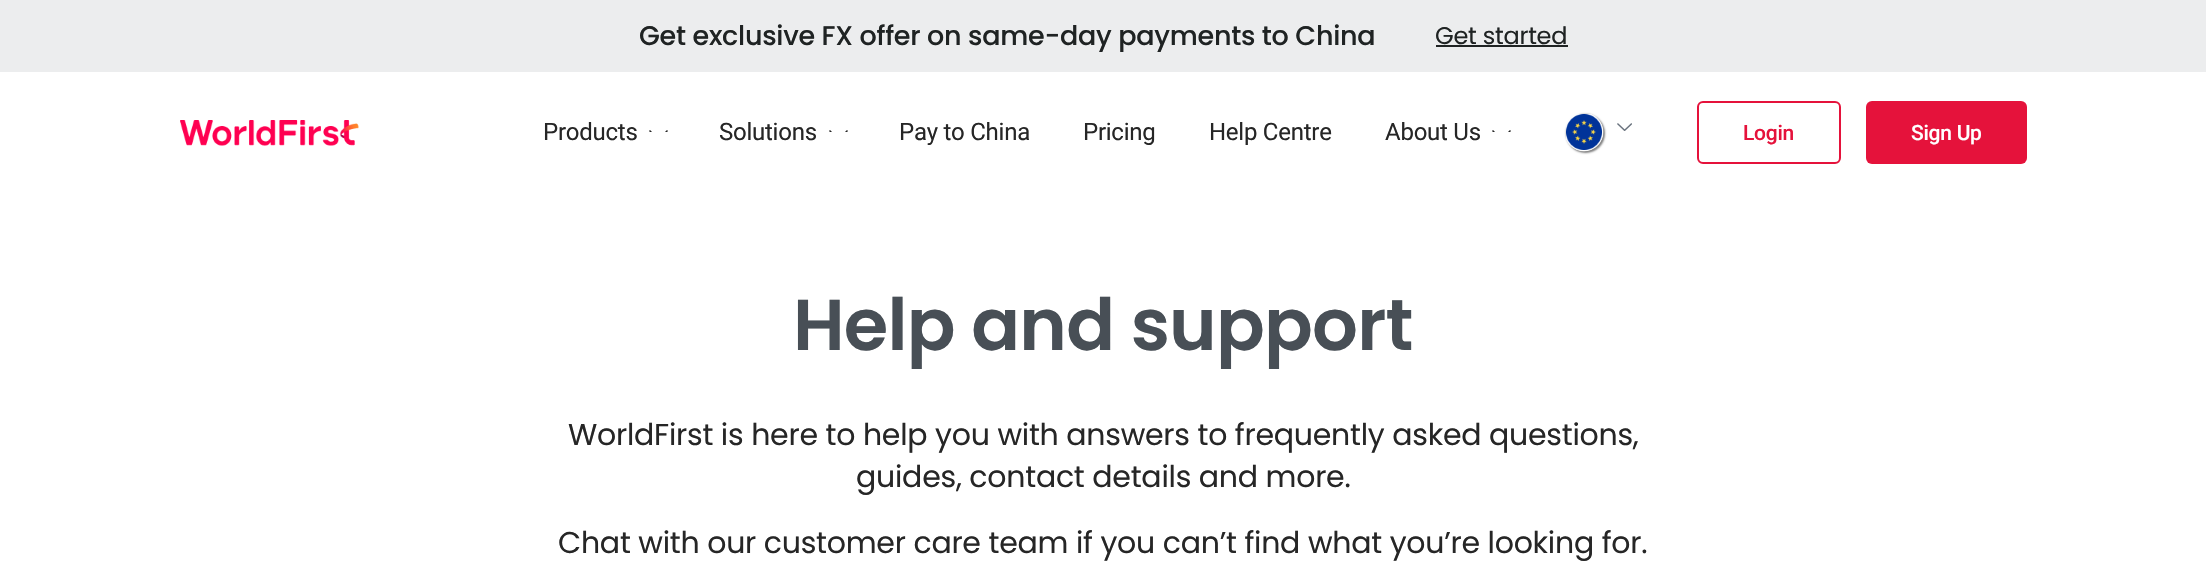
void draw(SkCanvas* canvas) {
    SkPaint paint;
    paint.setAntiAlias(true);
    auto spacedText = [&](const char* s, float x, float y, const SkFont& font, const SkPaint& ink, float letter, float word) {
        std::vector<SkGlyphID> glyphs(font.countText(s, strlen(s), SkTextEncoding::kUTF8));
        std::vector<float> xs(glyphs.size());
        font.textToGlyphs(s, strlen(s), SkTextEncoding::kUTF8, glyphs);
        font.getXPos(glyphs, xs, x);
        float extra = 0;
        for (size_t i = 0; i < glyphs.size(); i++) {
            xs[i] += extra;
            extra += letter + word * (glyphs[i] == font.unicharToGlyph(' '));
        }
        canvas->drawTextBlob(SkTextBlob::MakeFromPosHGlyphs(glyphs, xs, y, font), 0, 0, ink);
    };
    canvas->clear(0xFFFFFFFF);
    paint.setColor(0xFFECEDEE);
    canvas->drawRect(SkRect::MakeXYWH(0, 0, 2206, 72), paint);
    SkFont font1(fontMgr->matchFamilyStyle("Poppins", SkFontStyle(500, SkFontStyle::kNormal_Width, SkFontStyle::kUpright_Slant)), 27);
    font1.setSubpixel(true);
    paint.setColor(0xFF1F2323);
    spacedText("Get exclusive FX offer on same-day payments to China", 639, 45, font1, paint, -0.27f, 0);
    SkFont font2(fontMgr->matchFamilyStyle("Poppins", SkFontStyle::Normal()), 24);
    font2.setSubpixel(true);
    spacedText("Get started", 1435, 44, font2, paint, -0.25f, 0);
    canvas->drawRect(SkRect::MakeXYWH(1436, 45, 132, 2), paint);
    canvas->drawImageRect(SkImages::DeferredFromEncodedData(SkData::MakeFromFileName("img1.png")), SkRect::MakeXYWH(180, 120, 179, 26), SkSamplingOptions());
    SkFont font3(fontMgr->matchFamilyStyle("Roboto", SkFontStyle::Normal()), 24);
    font3.setSubpixel(true);
    paint.setColor(0xFF262626);
    spacedText("Products", 543, 140, font3, paint, -0.25f, 0);
    canvas->drawImageRect(SkImages::DeferredFromEncodedData(SkData::MakeFromFileName("img2.png")), SkRect::MakeXYWH(649, 130, 19, 2), SkSamplingOptions());
    spacedText("Solutions", 719, 140, font3, paint, -0.25f, 0);
    canvas->drawImageRect(SkImages::DeferredFromEncodedData(SkData::MakeFromFileName("img2.png")), SkRect::MakeXYWH(829, 130, 19, 2), SkSamplingOptions());
    spacedText("Pay to China", 899, 140, font3, paint, -0.25f, 0);
    spacedText("Pricing", 1083, 140, font3, paint, -0.25f, 0);
    spacedText("Help Centre", 1209, 140, font3, paint, -0.25f, 0);
    spacedText("About Us", 1385, 140, font3, paint, -0.25f, 0);
    canvas->drawImageRect(SkImages::DeferredFromEncodedData(SkData::MakeFromFileName("img2.png")), SkRect::MakeXYWH(1492, 130, 19, 2), SkSamplingOptions());
    paint.setColor(0x80000000);
    paint.setMaskFilter(SkMaskFilter::MakeBlur(kNormal_SkBlurStyle, 1));
    canvas->drawRoundRect(SkRect::MakeXYWH(1566, 114, 39, 39), 19.5f, 19.5f, paint);
    paint.setMaskFilter(nullptr);
    canvas->drawImageRect(SkImages::DeferredFromEncodedData(SkData::MakeFromFileName("img3.png")), SkRect::MakeXYWH(1566, 114, 38, 38), SkSamplingOptions());
    canvas->drawImageRect(SkImages::DeferredFromEncodedData(SkData::MakeFromFileName("img4.png")), SkRect::MakeXYWH(1617, 123, 15, 8), SkSamplingOptions());
    paint.setStyle(SkPaint::kStroke_Style);
    paint.setStrokeWidth(2);
    paint.setColor(0xFFE5123B);
    canvas->drawRoundRect(SkRect::MakeXYWH(1698, 102, 142, 61), 5, 5, paint);
    SkFont font4(fontMgr->matchFamilyStyle("Roboto", SkFontStyle(500, SkFontStyle::kNormal_Width, SkFontStyle::kUpright_Slant)), 21);
    font4.setSubpixel(true);
    paint.setStyle(SkPaint::kFill_Style);
    spacedText("Login", 1743, 140, font4, paint, -0.25f, 0);
    canvas->drawRoundRect(SkRect::MakeXYWH(1866, 101, 161, 63), 6, 6, paint);
    paint.setColor(0xFFFFFFFF);
    spacedText("Sign Up", 1911, 140, font4, paint, -0.25f, 0);
    SkFont font5(fontMgr->matchFamilyStyle("Poppins", SkFontStyle(600, SkFontStyle::kNormal_Width, SkFontStyle::kUpright_Slant)), 72);
    font5.setSubpixel(true);
    paint.setColor(0xFF484F56);
    spacedText("Help and support", 793, 350, font5, paint, -0.75f, 0);
    SkFont font6(fontMgr->matchFamilyStyle("Poppins", SkFontStyle::Normal()), 30);
    font6.setSubpixel(true);
    paint.setColor(0xFF262626);
    spacedText("WorldFirst is here to help you with answers to frequently asked questions,", 568, 445, font6, paint, -0.25f, 0);
    spacedText("guides, contact details and more.", 856, 487, font6, paint, -0.25f, 0);
    spacedText("Chat with our customer care team if you can’t find what you’re looking for.", 558, 553, font6, paint, -0.25f, 0);
}
